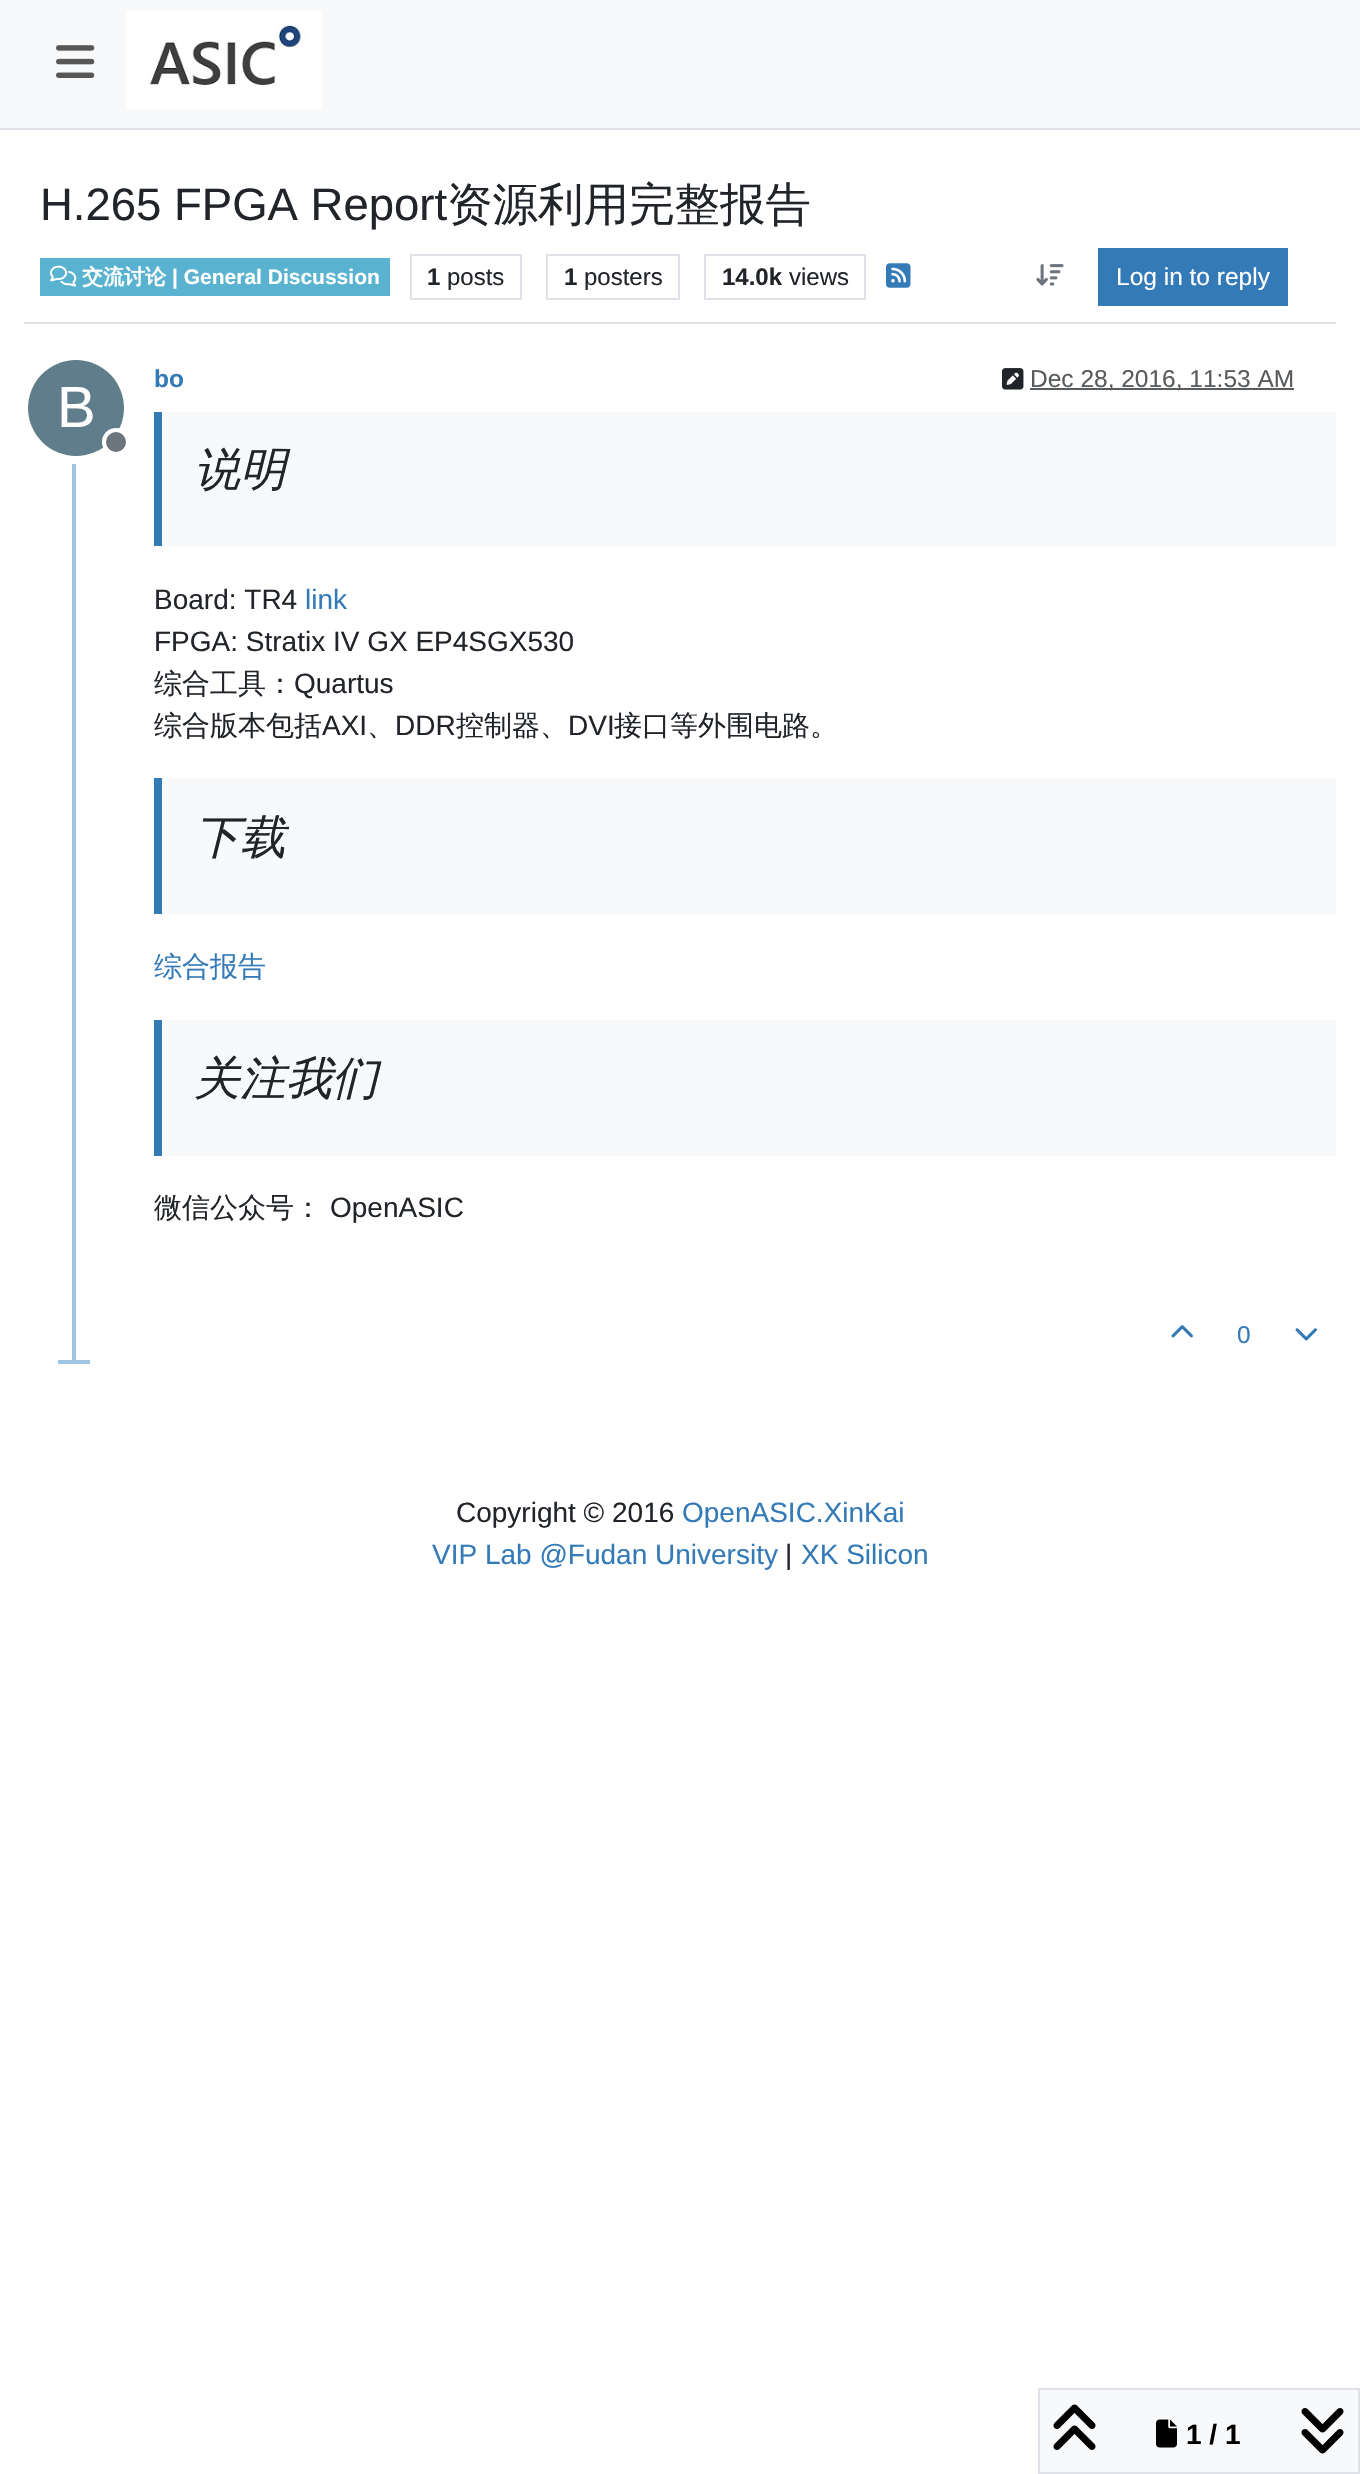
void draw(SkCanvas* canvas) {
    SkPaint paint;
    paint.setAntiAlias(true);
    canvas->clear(0xFFFFFFFF);
    paint.setColor(0xFFF8F9FA);
    canvas->drawRect(SkRect::MakeXYWH(0, 0, 1360, 128), paint);
    paint.setColor(0xFFDEE2E6);
    canvas->drawRect(SkRect::MakeXYWH(0, 128, 1360, 2), paint);
    canvas->drawImageRect(SkImages::DeferredFromEncodedData(SkData::MakeFromFileName("img1.png")), SkRect::MakeXYWH(56, 45, 39, 33), SkSamplingOptions());
    canvas->drawImageRect(SkImages::DeferredFromEncodedData(SkData::MakeFromFileName("img2.png")), SkRect::MakeXYWH(126, 10, 196, 100), SkSamplingOptions());
    canvas->drawRect(SkRect::MakeXYWH(24, 322, 1312, 2), paint);
    SkFont font1(fontMgr->matchFamilyStyle("Liberation Sans", SkFontStyle::Normal()), 45.5f);
    font1.setSubpixel(true);
    paint.setColor(0xFF212529);
    canvas->drawString("H.265 FPGA Report", 40, 220, font1, paint);
    SkFont font2(fontMgr->matchFamilyStyle("WenQuanYi Zen Hei", SkFontStyle(500, SkFontStyle::kNormal_Width, SkFontStyle::kUpright_Slant)), 45.5f);
    font2.setSubpixel(true);
    canvas->drawString("资源利用完整报告", 447, 220, font2, paint);
    paint.setColor(0xFF59B3D0);
    canvas->drawRect(SkRect::MakeXYWH(40, 258, 350, 38), paint);
    canvas->drawImageRect(SkImages::DeferredFromEncodedData(SkData::MakeFromFileName("img3.png")), SkRect::MakeXYWH(50, 265, 27, 22), SkSamplingOptions());
    SkFont font3(fontMgr->matchFamilyStyle("WenQuanYi Zen Hei", SkFontStyle::Bold()), 21);
    font3.setSubpixel(true);
    paint.setColor(0xFFFFFFFF);
    canvas->drawString("交流讨论", 82, 284, font3, paint);
    SkFont font4(fontMgr->matchFamilyStyle("Liberation Sans", SkFontStyle::Bold()), 21);
    font4.setSubpixel(true);
    canvas->drawString("| General Discussion", 172, 284, font4, paint);
    paint.setStyle(SkPaint::kStroke_Style);
    paint.setStrokeWidth(2);
    paint.setColor(0xFFDEE2E6);
    canvas->drawRect(SkRect::MakeXYWH(411, 255, 110, 44), paint);
    SkFont font5(fontMgr->matchFamilyStyle("Liberation Sans", SkFontStyle::Bold()), 24);
    font5.setSubpixel(true);
    paint.setStyle(SkPaint::kFill_Style);
    paint.setColor(0xFF212529);
    canvas->drawString("1", 427, 285, font5, paint);
    SkFont font6(fontMgr->matchFamilyStyle("Liberation Sans", SkFontStyle::Normal()), 24);
    font6.setSubpixel(true);
    canvas->drawString("posts", 447, 285, font6, paint);
    paint.setStyle(SkPaint::kStroke_Style);
    paint.setColor(0xFFDEE2E6);
    canvas->drawRect(SkRect::MakeXYWH(547, 255, 132, 44), paint);
    paint.setStyle(SkPaint::kFill_Style);
    paint.setColor(0xFF212529);
    canvas->drawString("1", 564, 285, font5, paint);
    canvas->drawString("posters", 584, 285, font6, paint);
    paint.setStyle(SkPaint::kStroke_Style);
    paint.setColor(0xFFDEE2E6);
    canvas->drawRect(SkRect::MakeXYWH(705, 255, 160, 44), paint);
    paint.setStyle(SkPaint::kFill_Style);
    paint.setColor(0xFF212529);
    canvas->drawString("14.0k", 722, 285, font5, paint);
    canvas->drawString("views", 789, 285, font6, paint);
    canvas->drawImageRect(SkImages::DeferredFromEncodedData(SkData::MakeFromFileName("img4.png")), SkRect::MakeXYWH(886, 263, 25, 25), SkSamplingOptions());
    canvas->drawImageRect(SkImages::DeferredFromEncodedData(SkData::MakeFromFileName("img5.png")), SkRect::MakeXYWH(1036, 264, 28, 22), SkSamplingOptions());
    paint.setColor(0xFF337AB7);
    canvas->drawRect(SkRect::MakeXYWH(1098, 248, 190, 58), paint);
    SkFont font7(fontMgr->matchFamilyStyle("Liberation Sans", SkFontStyle::Normal()), 24.5f);
    font7.setSubpixel(true);
    paint.setColor(0xFFFFFFFF);
    canvas->drawString("Log in to reply", 1116, 285, font7, paint);
    paint.setColor(0xFFA0C4E4);
    canvas->drawRect(SkRect::MakeXYWH(72, 356, 4, 1008), paint);
    SkFont font8(fontMgr->matchFamilyStyle("Liberation Sans", SkFontStyle::Bold()), 24.5f);
    font8.setSubpixel(true);
    paint.setColor(0xFF337AB7);
    canvas->drawString("bo", 154, 387, font8, paint);
    canvas->drawImageRect(SkImages::DeferredFromEncodedData(SkData::MakeFromFileName("img6.png")), SkRect::MakeXYWH(1002, 368, 22, 22), SkSamplingOptions());
    paint.setColor(0xFF595C5F);
    canvas->drawRect(SkRect::MakeXYWH(1030, 388, 264, 2), paint);
    paint.setColor(0xFF585B5E);
    canvas->drawString("Dec 28, 2016, 11:53 AM", 1030, 387, font7, paint);
    paint.setStyle(SkPaint::kStroke_Style);
    paint.setStrokeWidth(8);
    paint.setColor(0xFFFFFFFF);
    canvas->drawCircle(76, 408, 52, paint);
    paint.setStyle(SkPaint::kFill_Style);
    paint.setColor(0xFF607D8B);
    canvas->drawCircle(76, 408, 48, paint);
    SkFont font9(fontMgr->matchFamilyStyle("Liberation Sans", SkFontStyle::Normal()), 58);
    font9.setSubpixel(true);
    paint.setColor(0xFFFFFFFF);
    canvas->drawString("B", 57, 427, font9, paint);
    paint.setColor(0xFF6C757D);
    canvas->drawCircle(116, 442, 12, paint);
    paint.setStyle(SkPaint::kStroke_Style);
    paint.setStrokeWidth(4);
    paint.setColor(0xFFFFFFFF);
    canvas->drawCircle(116, 442, 12, paint);
    paint.setStyle(SkPaint::kFill_Style);
    paint.setColor(0xFFF8F9FA);
    canvas->drawRect(SkRect::MakeXYWH(162, 412, 1174, 134), paint);
    paint.setColor(0xFF337AB7);
    canvas->drawRect(SkRect::MakeXYWH(154, 412, 8, 134), paint);
    SkFont font10(fontMgr->matchFamilyStyle("WenQuanYi Zen Hei", SkFontStyle(500, SkFontStyle::kNormal_Width, SkFontStyle::kItalic_Slant)), 46);
    font10.setSubpixel(true);
    paint.setColor(0xFF212529);
    canvas->drawString("说明", 194, 485, font10, paint);
    SkFont font11(fontMgr->matchFamilyStyle("Liberation Sans", SkFontStyle::Normal()), 28);
    font11.setSubpixel(true);
    canvas->drawString("Board: TR4", 154, 609, font11, paint);
    paint.setColor(0xFF337AB7);
    canvas->drawString("link", 305, 609, font11, paint);
    paint.setColor(0xFF212529);
    canvas->drawString("FPGA: Stratix IV GX EP4SGX530", 154, 651, font11, paint);
    SkFont font12(fontMgr->matchFamilyStyle("WenQuanYi Zen Hei", SkFontStyle(500, SkFontStyle::kNormal_Width, SkFontStyle::kUpright_Slant)), 28);
    font12.setSubpixel(true);
    canvas->drawString("综合工具：", 154, 693, font12, paint);
    canvas->drawString("Quartus", 294, 693, font11, paint);
    canvas->drawString("综合版本包括", 154, 735, font12, paint);
    canvas->drawString("AXI", 322, 735, font11, paint);
    canvas->drawString("、", 367, 735, font12, paint);
    canvas->drawString("DDR", 395, 735, font11, paint);
    canvas->drawString("控制器、", 456, 735, font12, paint);
    canvas->drawString("DVI", 568, 735, font11, paint);
    canvas->drawString("接口等外围电路。", 614, 735, font12, paint);
    paint.setColor(0xFFF8F9FA);
    canvas->drawRect(SkRect::MakeXYWH(162, 778, 1174, 136), paint);
    paint.setColor(0xFF337AB7);
    canvas->drawRect(SkRect::MakeXYWH(154, 778, 8, 136), paint);
    paint.setColor(0xFF212529);
    canvas->drawString("下载", 194, 853, font10, paint);
    paint.setColor(0xFF337AB7);
    canvas->drawString("综合报告", 154, 976, font12, paint);
    paint.setColor(0xFFF8F9FA);
    canvas->drawRect(SkRect::MakeXYWH(162, 1020, 1174, 136), paint);
    paint.setColor(0xFF337AB7);
    canvas->drawRect(SkRect::MakeXYWH(154, 1020, 8, 136), paint);
    paint.setColor(0xFF212529);
    canvas->drawString("关注我们", 194, 1094, font10, paint);
    canvas->drawString("微信公众号：", 154, 1217, font12, paint);
    canvas->drawString("OpenASIC", 330, 1217, font11, paint);
    canvas->drawImageRect(SkImages::DeferredFromEncodedData(SkData::MakeFromFileName("img7.png")), SkRect::MakeXYWH(1171, 1325, 22, 13), SkSamplingOptions());
    paint.setColor(0xFF337AB7);
    canvas->drawString("0", 1237, 1343, font7, paint);
    canvas->drawImageRect(SkImages::DeferredFromEncodedData(SkData::MakeFromFileName("img8.png")), SkRect::MakeXYWH(1295, 1328, 22, 13), SkSamplingOptions());
    paint.setColor(0xFFA0C4E4);
    canvas->drawRect(SkRect::MakeXYWH(58, 1360, 32, 4), paint);
    paint.setColor(0xFFF8F9FA);
    canvas->drawRect(SkRect::MakeXYWH(1039, 2389, 320, 84), paint);
    paint.setStyle(SkPaint::kStroke_Style);
    paint.setStrokeWidth(2);
    paint.setColor(0xFFDEE2E6);
    canvas->drawRect(SkRect::MakeXYWH(1039, 2389, 320, 84), paint);
    canvas->drawImageRect(SkImages::DeferredFromEncodedData(SkData::MakeFromFileName("img9.png")), SkRect::MakeXYWH(1053, 2404, 43, 46), SkSamplingOptions());
    canvas->drawImageRect(SkImages::DeferredFromEncodedData(SkData::MakeFromFileName("img10.png")), SkRect::MakeXYWH(1156, 2419, 21, 29), SkSamplingOptions());
    SkFont font13(fontMgr->matchFamilyStyle("Liberation Sans", SkFontStyle::Bold()), 28);
    font13.setSubpixel(true);
    paint.setStyle(SkPaint::kFill_Style);
    paint.setColor(0xFF000000);
    canvas->drawString("1 / 1", 1186, 2444, font13, paint);
    canvas->drawImageRect(SkImages::DeferredFromEncodedData(SkData::MakeFromFileName("img11.png")), SkRect::MakeXYWH(1301, 2408, 43, 46), SkSamplingOptions());
    paint.setColor(0xFF212529);
    canvas->drawString("Copyright © 2016", 456, 1522, font11, paint);
    paint.setColor(0xFF337AB7);
    canvas->drawString("OpenASIC.XinKai", 682, 1522, font11, paint);
    canvas->drawString("VIP Lab @Fudan University", 432, 1564, font11, paint);
    paint.setColor(0xFF212529);
    canvas->drawString("|", 785, 1564, font11, paint);
    paint.setColor(0xFF337AB7);
    canvas->drawString("XK Silicon", 801, 1564, font11, paint);
}
